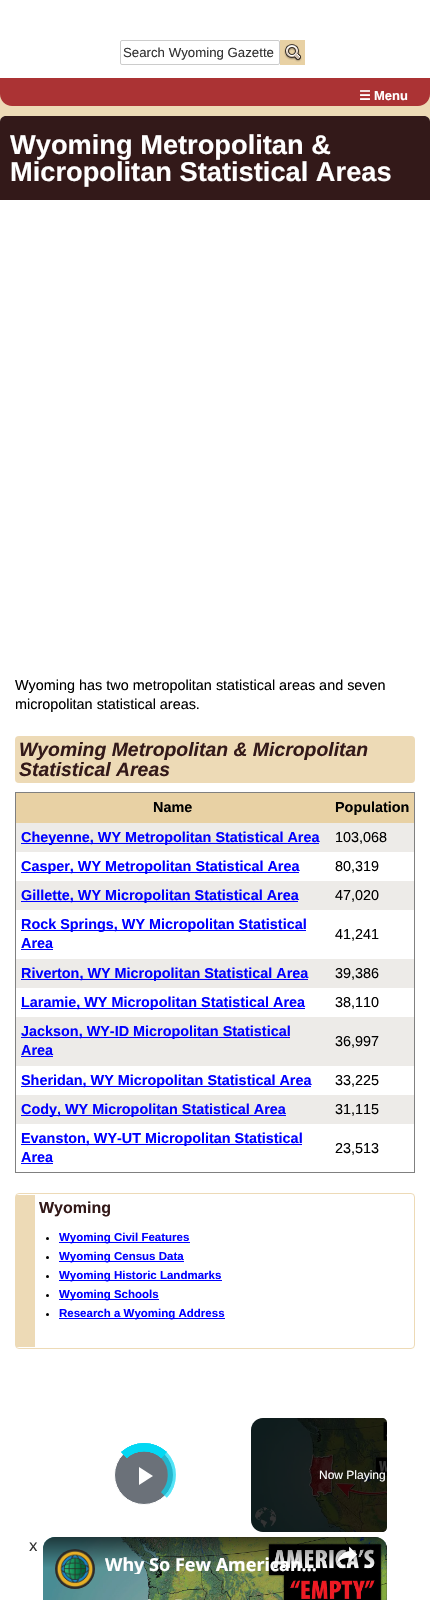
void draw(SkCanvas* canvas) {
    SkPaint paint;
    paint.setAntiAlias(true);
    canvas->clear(0xFFEDDAB6);
    paint.setColor(0xFFFFFFFF);
    canvas->drawRect(SkRect::MakeXYWH(0, 0, 430, 78), paint);
    paint.setStyle(SkPaint::kStroke_Style);
    paint.setStrokeWidth(1);
    paint.setColor(0xFFCCCCCC);
    canvas->drawRoundRect(SkRect::MakeXYWH(120.5f, 40.5f, 159, 24), 1.5f, 1.5f, paint);
    SkFont font1(fontMgr->matchFamilyStyle("Liberation Sans", SkFontStyle::Normal()), 13.25f);
    font1.setSubpixel(true);
    paint.setStyle(SkPaint::kFill_Style);
    paint.setColor(0xFF333333);
    canvas->drawString("Search Wyoming Gazette", 123, 57, font1, paint);
    paint.setColor(0xFFE8D1A4);
    canvas->drawRect(SkRect::MakeXYWH(280, 40, 25, 25), paint);
    canvas->drawImageRect(SkImages::DeferredFromEncodedData(SkData::MakeFromFileName("img1.png")), SkRect::MakeXYWH(284, 44, 18, 18), SkSamplingOptions());
    paint.setColor(0xFFAB3334);
    canvas->drawPath(SkPathBuilder().moveTo(0, 78).lineTo(430, 78).lineTo(430, 94).cubicTo(430, 100.5f, 424.5f, 106, 418, 106).lineTo(12, 106).cubicTo(5.5f, 106, 0, 100.5f, 0, 94).close().detach(), paint);
    SkFont font2(fontMgr->matchFamilyStyle("DejaVu Sans", SkFontStyle::Bold()), 13);
    font2.setSubpixel(true);
    paint.setColor(0xFFFFFFFF);
    canvas->drawString("☰", 359, 100, font2, paint);
    SkFont font3(fontMgr->matchFamilyStyle("Liberation Sans", SkFontStyle::Bold()), 13);
    font3.setSubpixel(true);
    canvas->drawString("Menu", 374, 100, font3, paint);
    canvas->drawRoundRect(SkRect::MakeXYWH(0, 116, 430, 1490), 6, 6, paint);
    paint.setColor(0xFF331919);
    canvas->drawPath(SkPathBuilder().moveTo(6, 116).lineTo(424, 116).cubicTo(427.5f, 116, 430, 118.5f, 430, 122).lineTo(430, 200).lineTo(0, 200).lineTo(0, 122).cubicTo(0, 118.5f, 2.5f, 116, 6, 116).close().detach(), paint);
    SkFont font4(fontMgr->matchFamilyStyle("Liberation Sans", SkFontStyle::Bold()), 27.25f);
    font4.setSubpixel(true);
    paint.setColor(0xFFFFFFFF);
    canvas->drawString("Wyoming Metropolitan &", 10, 154, font4, paint);
    canvas->drawString("Micropolitan Statistical Areas", 10, 181, font4, paint);
    SkFont font5(fontMgr->matchFamilyStyle("Liberation Sans", SkFontStyle::Normal()), 14.4f);
    font5.setSubpixel(true);
    paint.setColor(0xFF000000);
    canvas->drawString("Wyoming has two metropolitan statistical areas and seven", 15, 690, font5, paint);
    canvas->drawString("micropolitan statistical areas.", 15, 709, font5, paint);
    paint.setColor(0xFFEDDAB6);
    canvas->drawRoundRect(SkRect::MakeXYWH(15, 736, 400, 47), 4, 4, paint);
    SkFont font6(fontMgr->matchFamilyStyle("Liberation Sans", SkFontStyle::BoldItalic()), 19.4f);
    font6.setSubpixel(true);
    paint.setColor(0xFF331919);
    canvas->drawString("Wyoming Metropolitan & Micropolitan", 19, 756, font6, paint);
    canvas->drawString("Statistical Areas", 19, 776, font6, paint);
    paint.setColor(0xFF808080);
    canvas->drawRect(SkRect::MakeXYWH(15, 792, 400, 1), paint);
    canvas->drawRect(SkRect::MakeXYWH(414, 792, 1, 381), paint);
    canvas->drawRect(SkRect::MakeXYWH(15, 1172, 400, 1), paint);
    canvas->drawRect(SkRect::MakeXYWH(15, 792, 1, 381), paint);
    paint.setColor(0xFFE8D1A4);
    canvas->drawRect(SkRect::MakeXYWH(16, 793, 398, 30), paint);
    SkFont font7(fontMgr->matchFamilyStyle("Liberation Sans", SkFontStyle::Bold()), 14.4f);
    font7.setSubpixel(true);
    paint.setColor(0xFF000000);
    canvas->drawString("Name", 153, 812, font7, paint);
    canvas->drawString("Population", 335, 812, font7, paint);
    paint.setColor(0xFFEDEBE8);
    canvas->drawRect(SkRect::MakeXYWH(16, 823, 398, 29), paint);
    paint.setColor(0xFF0000FF);
    canvas->drawRect(SkRect::MakeXYWH(21, 843, 298, 1), paint);
    canvas->drawString("Cheyenne, WY Metropolitan Statistical Area", 21, 842, font7, paint);
    paint.setColor(0xFF000000);
    canvas->drawString("103,068", 335, 842, font5, paint);
    paint.setColor(0xFF0000FF);
    canvas->drawRect(SkRect::MakeXYWH(21, 872, 278, 1), paint);
    canvas->drawString("Casper, WY Metropolitan Statistical Area", 21, 871, font7, paint);
    paint.setColor(0xFF000000);
    canvas->drawString("80,319", 335, 871, font5, paint);
    paint.setColor(0xFFEDEBE8);
    canvas->drawRect(SkRect::MakeXYWH(16, 881, 398, 29), paint);
    paint.setColor(0xFF0000FF);
    canvas->drawRect(SkRect::MakeXYWH(21, 901, 277, 1), paint);
    canvas->drawString("Gillette, WY Micropolitan Statistical Area", 21, 900, font7, paint);
    paint.setColor(0xFF000000);
    canvas->drawString("47,020", 335, 900, font5, paint);
    paint.setColor(0xFF0000FF);
    canvas->drawRect(SkRect::MakeXYWH(21, 930, 285, 1), paint);
    canvas->drawString("Rock Springs, WY Micropolitan Statistical", 21, 929, font7, paint);
    canvas->drawString("Area", 21, 948, font7, paint);
    canvas->drawRect(SkRect::MakeXYWH(21, 949, 32, 1), paint);
    paint.setColor(0xFF000000);
    canvas->drawString("41,241", 335, 939, font5, paint);
    paint.setColor(0xFFEDEBE8);
    canvas->drawRect(SkRect::MakeXYWH(16, 959, 398, 29), paint);
    paint.setColor(0xFF0000FF);
    canvas->drawRect(SkRect::MakeXYWH(21, 979, 287, 1), paint);
    canvas->drawString("Riverton, WY Micropolitan Statistical Area", 21, 978, font7, paint);
    paint.setColor(0xFF000000);
    canvas->drawString("39,386", 335, 978, font5, paint);
    paint.setColor(0xFF0000FF);
    canvas->drawRect(SkRect::MakeXYWH(21, 1008, 284, 1), paint);
    canvas->drawString("Laramie, WY Micropolitan Statistical Area", 21, 1007, font7, paint);
    paint.setColor(0xFF000000);
    canvas->drawString("38,110", 335, 1007, font5, paint);
    paint.setColor(0xFFEDEBE8);
    canvas->drawRect(SkRect::MakeXYWH(16, 1017, 398, 49), paint);
    paint.setColor(0xFF0000FF);
    canvas->drawRect(SkRect::MakeXYWH(21, 1037, 269, 1), paint);
    canvas->drawString("Jackson, WY-ID Micropolitan Statistical", 21, 1036, font7, paint);
    canvas->drawString("Area", 21, 1055, font7, paint);
    canvas->drawRect(SkRect::MakeXYWH(21, 1056, 32, 1), paint);
    paint.setColor(0xFF000000);
    canvas->drawString("36,997", 335, 1046, font5, paint);
    paint.setColor(0xFF0000FF);
    canvas->drawRect(SkRect::MakeXYWH(21, 1086, 290, 1), paint);
    canvas->drawString("Sheridan, WY Micropolitan Statistical Area", 21, 1085, font7, paint);
    paint.setColor(0xFF000000);
    canvas->drawString("33,225", 335, 1085, font5, paint);
    paint.setColor(0xFFEDEBE8);
    canvas->drawRect(SkRect::MakeXYWH(16, 1095, 398, 29), paint);
    paint.setColor(0xFF0000FF);
    canvas->drawRect(SkRect::MakeXYWH(21, 1115, 265, 1), paint);
    canvas->drawString("Cody, WY Micropolitan Statistical Area", 21, 1114, font7, paint);
    paint.setColor(0xFF000000);
    canvas->drawString("31,115", 335, 1114, font5, paint);
    paint.setColor(0xFF0000FF);
    canvas->drawRect(SkRect::MakeXYWH(21, 1144, 281, 1), paint);
    canvas->drawString("Evanston, WY-UT Micropolitan Statistical", 21, 1143, font7, paint);
    canvas->drawString("Area", 21, 1162, font7, paint);
    canvas->drawRect(SkRect::MakeXYWH(21, 1163, 32, 1), paint);
    paint.setColor(0xFF000000);
    canvas->drawString("23,513", 335, 1153, font5, paint);
    paint.setStyle(SkPaint::kStroke_Style);
    paint.setColor(0xFFEDDAB6);
    canvas->drawRoundRect(SkRect::MakeXYWH(15.5f, 1193.5f, 399, 155), 3.5f, 3.5f, paint);
    paint.setStyle(SkPaint::kFill_Style);
    canvas->drawRect(SkRect::MakeXYWH(16, 1195, 19, 152), paint);
    SkFont font8(fontMgr->matchFamilyStyle("Liberation Sans", SkFontStyle::Bold()), 16);
    font8.setSubpixel(true);
    paint.setColor(0xFF331919);
    canvas->drawString("Wyoming", 39, 1213, font8, paint);
    paint.setColor(0xFF000000);
    canvas->drawCircle(47.5f, 1238.5f, 1.5f, paint);
    paint.setColor(0xFF0000FF);
    canvas->drawRect(SkRect::MakeXYWH(59, 1242, 131, 1), paint);
    SkFont font9(fontMgr->matchFamilyStyle("Liberation Sans", SkFontStyle::Bold()), 11.5f);
    font9.setSubpixel(true);
    canvas->drawString("Wyoming Civil Features", 59, 1241, font9, paint);
    paint.setColor(0xFF000000);
    canvas->drawCircle(47.5f, 1257.5f, 1.5f, paint);
    paint.setColor(0xFF0000FF);
    canvas->drawRect(SkRect::MakeXYWH(59, 1261, 125, 1), paint);
    canvas->drawString("Wyoming Census Data", 59, 1260, font9, paint);
    paint.setColor(0xFF000000);
    canvas->drawCircle(47.5f, 1276.5f, 1.5f, paint);
    paint.setColor(0xFF0000FF);
    canvas->drawRect(SkRect::MakeXYWH(59, 1280, 163, 1), paint);
    canvas->drawString("Wyoming Historic Landmarks", 59, 1279, font9, paint);
    paint.setColor(0xFF000000);
    canvas->drawCircle(47.5f, 1295.5f, 1.5f, paint);
    paint.setColor(0xFF0000FF);
    canvas->drawRect(SkRect::MakeXYWH(59, 1299, 100, 1), paint);
    canvas->drawString("Wyoming Schools", 59, 1298, font9, paint);
    paint.setColor(0xFF000000);
    canvas->drawCircle(47.5f, 1314.5f, 1.5f, paint);
    paint.setColor(0xFF0000FF);
    canvas->drawRect(SkRect::MakeXYWH(59, 1318, 166, 1), paint);
    canvas->drawString("Research a Wyoming Address", 59, 1317, font9, paint);
    paint.setColor(0xFF6B7179);
    canvas->drawCircle(144, 1475, 29.5f, paint);
    paint.setStyle(SkPaint::kStroke_Style);
    paint.setColor(0xFFFFFFFF);
    canvas->drawCircle(144, 1475, 29.5f, paint);
    paint.setStrokeWidth(8);
    paint.setColor(0xFF03D8F3);
    canvas->drawPath(SkPathBuilder().moveTo(124, 1455).cubicTo(135, 1444.5f, 153, 1444.5f, 164, 1455).detach(), paint);
    paint.setColor(0x4003D8F3);
    canvas->drawPath(SkPathBuilder().moveTo(164, 1455).cubicTo(174.5f, 1466, 174.5f, 1484, 164, 1495).detach(), paint);
    paint.setColor(0xFF03D8F3);
    canvas->drawPath(SkPathBuilder().moveTo(124, 1455).cubicTo(135, 1444.5f, 153, 1444.5f, 164, 1455).detach(), paint);
    paint.setColor(0x4003D8F3);
    canvas->drawPath(SkPathBuilder().moveTo(164, 1455).cubicTo(174.5f, 1466, 174.5f, 1484, 164, 1495).detach(), paint);
    paint.setColor(0xFF03D8F3);
    canvas->drawPath(SkPathBuilder().moveTo(124, 1455).cubicTo(135, 1444.5f, 153, 1444.5f, 164, 1455).detach(), paint);
    paint.setColor(0x4003D8F3);
    canvas->drawPath(SkPathBuilder().moveTo(164, 1455).cubicTo(174.5f, 1466, 174.5f, 1484, 164, 1495).detach(), paint);
    paint.setColor(0xFF03D8F3);
    canvas->drawPath(SkPathBuilder().moveTo(124, 1455).cubicTo(135, 1444.5f, 153, 1444.5f, 164, 1455).detach(), paint);
    paint.setColor(0x4003D8F3);
    canvas->drawPath(SkPathBuilder().moveTo(164, 1455).cubicTo(174.5f, 1466, 174.5f, 1484, 164, 1495).detach(), paint);
    paint.setStyle(SkPaint::kFill_Style);
    paint.setColor(0xFFFFFFFF);
    canvas->drawPath(SkPathBuilder().moveTo(139, 1467).lineTo(139, 1485).lineTo(153, 1476).close().detach(), paint);
    paint.setColor(0xFF000000);
    canvas->drawPath(SkPathBuilder().moveTo(263, 1418).lineTo(382, 1418).cubicTo(385, 1418, 387, 1420, 387, 1423).lineTo(387, 1527).cubicTo(387, 1530, 385, 1532, 382, 1532).lineTo(263, 1532).cubicTo(256.5f, 1532, 251, 1526.5f, 251, 1520).lineTo(251, 1430).cubicTo(251, 1423.5f, 256.5f, 1418, 263, 1418).close().detach(), paint);
    canvas->drawImageRect(SkImages::DeferredFromEncodedData(SkData::MakeFromFileName("img2.png")), SkRect::MakeXYWH(251, 1418, 136, 114), SkSamplingOptions());
    SkFont font10(fontMgr->matchFamilyStyle("Liberation Sans", SkFontStyle::Normal()), 12);
    font10.setSubpixel(true);
    paint.setColor(0xFFFFFFFF);
    canvas->drawString("Now Playing", 319, 1479, font10, paint);
    canvas->drawImageRect(SkImages::DeferredFromEncodedData(SkData::MakeFromFileName("img3.png")), SkRect::MakeXYWH(43, 1537, 344, 63), SkSamplingOptions());
    canvas->drawImageRect(SkImages::DeferredFromEncodedData(SkData::MakeFromFileName("img4.png")), SkRect::MakeXYWH(43, 1537, 344, 12), SkSamplingOptions());
    SkFont font11(fontMgr->matchFamilyStyle("Noto Sans", SkFontStyle::Normal()), 16);
    font11.setSubpixel(true);
    paint.setColor(0xFF333333);
    canvas->drawString("x", 29, 1551, font11, paint);
    {
        const SkColor colors[] = {0x99000000, 0x00000000, 0x00000000, 0xCC000000};
        const float stops[] = {0, 0.16f, 0.84f, 1};
        const SkPoint ends[] = {{215, 1537}, {215, 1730}};
        paint.setShader(SkGradientShader::MakeLinear(ends, colors, stops, 4, SkTileMode::kClamp));
        paint.setAlpha(255);
    }
    canvas->drawRoundRect(SkRect::MakeXYWH(43, 1537, 344, 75), 12, 12, paint);
    canvas->drawImageRect(SkImages::DeferredFromEncodedData(SkData::MakeFromFileName("img5.png")), SkRect::MakeXYWH(55, 1549, 40, 40), SkSamplingOptions());
    canvas->save();
    canvas->clipRect(SkRect::MakeXYWH(105, 1555, 214, 19));
    SkFont font12(fontMgr->matchFamilyStyle("Noto Sans", SkFontStyle::Bold()), 18);
    font12.setSubpixel(true);
    paint.setShader(nullptr);
    paint.setColor(0xFFFFFFFF);
    canvas->drawString("Why So Few American…", 105, 1571, font12, paint);
    canvas->restore();
    canvas->drawImageRect(SkImages::DeferredFromEncodedData(SkData::MakeFromFileName("img6.png")), SkRect::MakeXYWH(336, 1546, 21, 19), SkSamplingOptions());
}
